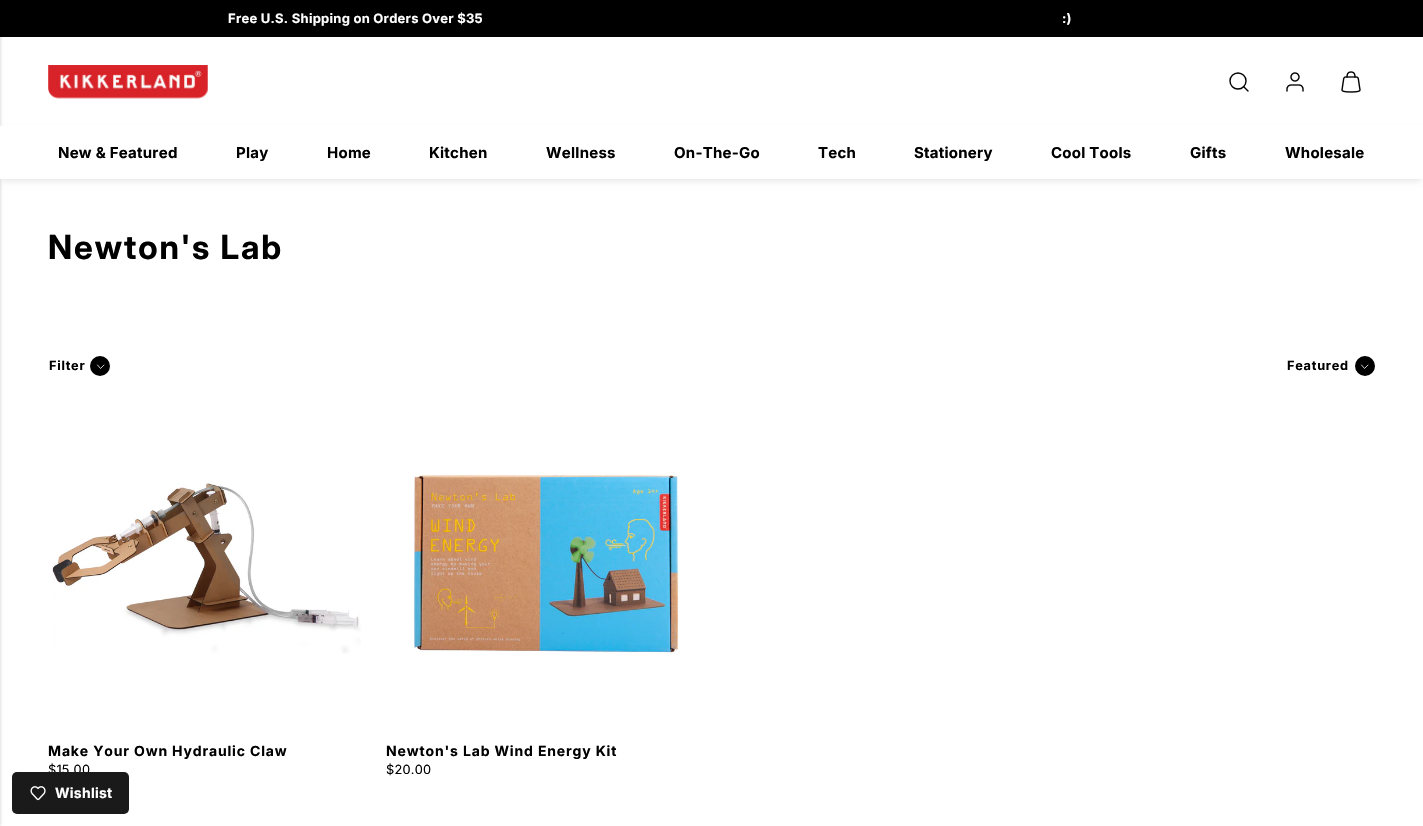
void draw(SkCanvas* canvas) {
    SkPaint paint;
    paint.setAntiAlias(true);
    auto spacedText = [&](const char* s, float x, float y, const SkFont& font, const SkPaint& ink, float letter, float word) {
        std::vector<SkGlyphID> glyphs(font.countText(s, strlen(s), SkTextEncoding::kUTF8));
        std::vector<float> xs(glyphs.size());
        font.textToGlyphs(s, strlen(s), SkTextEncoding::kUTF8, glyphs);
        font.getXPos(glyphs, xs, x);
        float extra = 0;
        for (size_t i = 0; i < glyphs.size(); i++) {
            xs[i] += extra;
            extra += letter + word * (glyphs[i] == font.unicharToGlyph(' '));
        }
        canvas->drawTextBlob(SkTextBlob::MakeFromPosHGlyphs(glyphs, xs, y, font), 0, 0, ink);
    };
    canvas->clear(0xFFFFFFFF);
    paint.setColor(0xFF000000);
    canvas->drawRect(SkRect::MakeXYWH(0, 0, 1423, 37), paint);
    paint.setColor(0x80000000);
    paint.setMaskFilter(SkMaskFilter::MakeBlur(kNormal_SkBlurStyle, 2.5f));
    canvas->drawRect(SkRect::MakeXYWH(-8, 0, 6, 826), paint);
    paint.setMaskFilter(nullptr);
    canvas->drawImageRect(SkImages::DeferredFromEncodedData(SkData::MakeFromFileName("img1.png")), SkRect::MakeXYWH(48, 65, 160, 34), SkSamplingOptions());
    paint.setStyle(SkPaint::kStroke_Style);
    paint.setStrokeWidth(1.4f);
    paint.setColor(0xFF000000);
    canvas->drawCircle(1238, 81, 8, paint);
    paint.setStrokeCap(SkPaint::kRound_Cap);
    paint.setStrokeJoin(SkPaint::kRound_Join);
    canvas->drawPath(SkPathBuilder().moveTo(1248, 91).lineTo(1243.5f, 86.5f).detach(), paint);
    canvas->drawImageRect(SkImages::DeferredFromEncodedData(SkData::MakeFromFileName("img2.png")), SkRect::MakeXYWH(1286, 72, 18, 20), SkSamplingOptions());
    canvas->drawImageRect(SkImages::DeferredFromEncodedData(SkData::MakeFromFileName("img3.png")), SkRect::MakeXYWH(1341, 71, 20, 22), SkSamplingOptions());
    SkFont font1(fontMgr->matchFamilyStyle("Inter", SkFontStyle::Bold()), 13);
    font1.setSubpixel(true);
    paint.setStyle(SkPaint::kFill_Style);
    paint.setColor(0xFFFFFFFF);
    spacedText("Free U.S. Shipping on Orders Over $35", 228, 23, font1, paint, 0.25f, 0);
    spacedText(":)", 1062, 23, font1, paint, 0.25f, 0);
    paint.setColor(0x1A000000);
    paint.setMaskFilter(SkMaskFilter::MakeBlur(kNormal_SkBlurStyle, 3));
    canvas->drawRect(SkRect::MakeXYWH(2, 132, 1419, 49), paint);
    paint.setMaskFilter(nullptr);
    paint.setColor(0xFFFFFFFF);
    canvas->drawRect(SkRect::MakeXYWH(0, 126, 1423, 53), paint);
    SkFont font2(fontMgr->matchFamilyStyle("Inter", SkFontStyle::Bold()), 15);
    font2.setSubpixel(true);
    paint.setColor(0xFF000000);
    spacedText("New & Featured", 58, 158, font2, paint, 0.25f, 0);
    spacedText("Play", 236, 158, font2, paint, 0.25f, 0);
    spacedText("Home", 327, 158, font2, paint, 0.25f, 0);
    spacedText("Kitchen", 429, 158, font2, paint, 0.25f, 0);
    spacedText("Wellness", 546, 158, font2, paint, 0.25f, 0);
    spacedText("On-The-Go", 674, 158, font2, paint, 0.25f, 0);
    spacedText("Tech", 818, 158, font2, paint, 0.25f, 0);
    spacedText("Stationery", 914, 158, font2, paint, 0.25f, 0);
    spacedText("Cool Tools", 1051, 158, font2, paint, 0.25f, 0);
    spacedText("Gifts", 1190, 158, font2, paint, 0.25f, 0);
    spacedText("Wholesale", 1285, 158, font2, paint, 0.25f, 0);
    SkFont font3(fontMgr->matchFamilyStyle("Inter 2", SkFontStyle::Bold()), 33.25f);
    font3.setSubpixel(true);
    spacedText("Newton's Lab", 48, 259, font3, paint, 2, 0);
    SkFont font4(fontMgr->matchFamilyStyle("Inter", SkFontStyle::Bold()), 12.75f);
    font4.setSubpixel(true);
    spacedText("Filter", 49, 370, font4, paint, 0.75f, 0);
    canvas->drawCircle(100, 366, 10, paint);
    paint.setStyle(SkPaint::kStroke_Style);
    paint.setStrokeWidth(0.8f);
    paint.setColor(0xFFFFFFFF);
    canvas->drawPath(SkPathBuilder().moveTo(97.5f, 365).lineTo(100.5f, 368.5f).lineTo(104, 365).detach(), paint);
    paint.setStyle(SkPaint::kFill_Style);
    paint.setColor(0xFF000000);
    spacedText("Featured", 1287, 370, font4, paint, 0.75f, 0);
    canvas->drawCircle(1365, 366, 10, paint);
    paint.setStyle(SkPaint::kStroke_Style);
    paint.setColor(0xFFFFFFFF);
    canvas->drawPath(SkPathBuilder().moveTo(1361.5f, 365).lineTo(1364.5f, 368.5f).lineTo(1368, 365).detach(), paint);
    canvas->drawImageRect(SkImages::DeferredFromEncodedData(SkData::MakeFromFileName("img4.png")), SkRect::MakeXYWH(52, 483, 309, 171), SkSamplingOptions());
    SkFont font5(fontMgr->matchFamilyStyle("Inter", SkFontStyle::Bold()), 14);
    font5.setSubpixel(true);
    paint.setStyle(SkPaint::kFill_Style);
    paint.setColor(0xFF000000);
    spacedText("Make Your Own Hydraulic Claw", 48, 756, font5, paint, 0.85f, 0);
    SkFont font6(fontMgr->matchFamilyStyle("Inter", SkFontStyle::Normal()), 12.75f);
    font6.setSubpixel(true);
    spacedText("$15.00", 48, 774, font6, paint, 0.25f, 0);
    canvas->drawImageRect(SkImages::DeferredFromEncodedData(SkData::MakeFromFileName("img5.png")), SkRect::MakeXYWH(413, 474, 266, 180), SkSamplingOptions());
    spacedText("Newton's Lab Wind Energy Kit", 386, 756, font5, paint, 0.85f, 0);
    spacedText("$20.00", 386, 774, font6, paint, 0.25f, 0);
    paint.setColor(0xFF1A1A1A);
    canvas->drawRoundRect(SkRect::MakeXYWH(12, 772, 117, 42), 5, 5, paint);
    canvas->drawImageRect(SkImages::DeferredFromEncodedData(SkData::MakeFromFileName("img6.png")), SkRect::MakeXYWH(30, 786, 16, 15), SkSamplingOptions());
    paint.setColor(0xFFFFFFFF);
    spacedText("Wishlist", 55, 798, font5, paint, 0.25f, 0);
}
